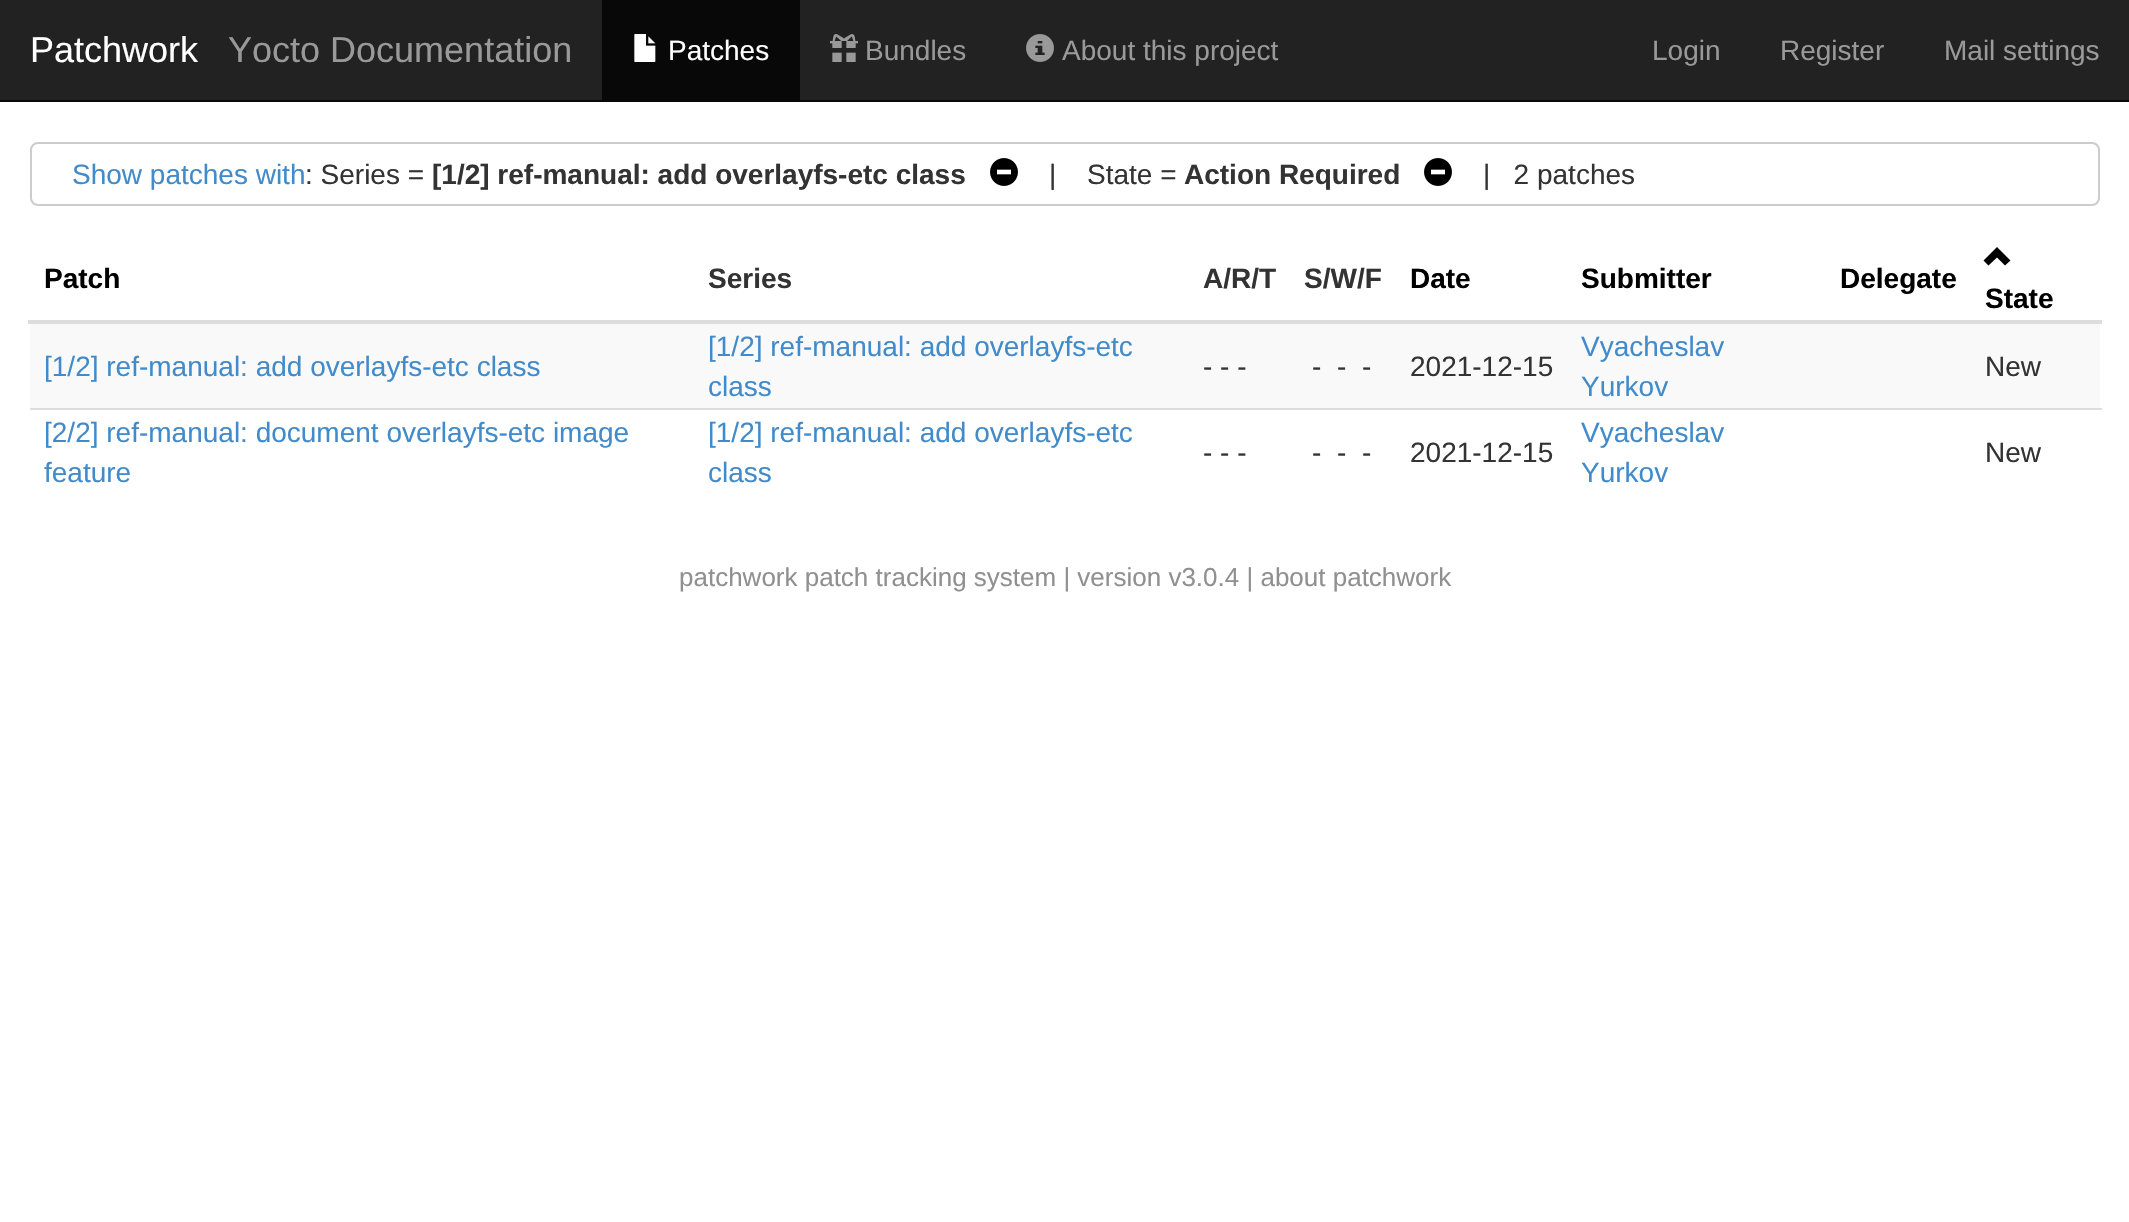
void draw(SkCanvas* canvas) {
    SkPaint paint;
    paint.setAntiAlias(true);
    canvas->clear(0xFFFFFFFF);
    paint.setColor(0xFF222222);
    canvas->drawRect(SkRect::MakeXYWH(0, 0, 2129, 100), paint);
    paint.setColor(0xFF080808);
    canvas->drawRect(SkRect::MakeXYWH(0, 100, 2129, 2), paint);
    SkFont font1(fontMgr->matchFamilyStyle("Liberation Sans", SkFontStyle::Normal()), 36);
    font1.setSubpixel(true);
    paint.setColor(0xFFFFFFFF);
    canvas->drawString("Patchwork", 30, 62, font1, paint);
    paint.setColor(0xFF999999);
    canvas->drawString("Yocto Documentation", 228, 62, font1, paint);
    paint.setColor(0xFF080808);
    canvas->drawRect(SkRect::MakeXYWH(602, 0, 198, 100), paint);
    canvas->drawImageRect(SkImages::DeferredFromEncodedData(SkData::MakeFromFileName("img1.png")), SkRect::MakeXYWH(634, 34, 22, 28), SkSamplingOptions());
    SkFont font2(fontMgr->matchFamilyStyle("Liberation Sans", SkFontStyle::Normal()), 28);
    font2.setSubpixel(true);
    paint.setColor(0xFFFFFFFF);
    canvas->drawString("Patches", 668, 60, font2, paint);
    canvas->drawImageRect(SkImages::DeferredFromEncodedData(SkData::MakeFromFileName("img2.png")), SkRect::MakeXYWH(830, 34, 28, 28), SkSamplingOptions());
    paint.setColor(0xFF999999);
    canvas->drawString("Bundles", 865, 60, font2, paint);
    canvas->drawImageRect(SkImages::DeferredFromEncodedData(SkData::MakeFromFileName("img3.png")), SkRect::MakeXYWH(1026, 34, 28, 28), SkSamplingOptions());
    canvas->drawString("About this project", 1062, 60, font2, paint);
    canvas->drawString("Login", 1652, 60, font2, paint);
    canvas->drawString("Register", 1780, 60, font2, paint);
    canvas->drawString("Mail settings", 1944, 60, font2, paint);
    paint.setStyle(SkPaint::kStroke_Style);
    paint.setStrokeWidth(2);
    paint.setColor(0xFFCCCCCC);
    canvas->drawRoundRect(SkRect::MakeXYWH(31, 143, 2068, 62), 7, 7, paint);
    paint.setStyle(SkPaint::kFill_Style);
    paint.setColor(0xFF428BCA);
    canvas->drawString("Show patches with", 72, 184, font2, paint);
    paint.setColor(0xFF333333);
    canvas->drawString(": Series =", 305, 184, font2, paint);
    SkFont font3(fontMgr->matchFamilyStyle("Liberation Sans", SkFontStyle::Bold()), 28);
    font3.setSubpixel(true);
    canvas->drawString("[1/2] ref-manual: add overlayfs-etc class", 432, 184, font3, paint);
    canvas->drawImageRect(SkImages::DeferredFromEncodedData(SkData::MakeFromFileName("img4.png")), SkRect::MakeXYWH(990, 158, 28, 28), SkSamplingOptions());
    canvas->drawString("|", 1049, 184, font2, paint);
    canvas->drawString("State =", 1087, 184, font2, paint);
    canvas->drawString("Action Required", 1184, 184, font3, paint);
    canvas->drawImageRect(SkImages::DeferredFromEncodedData(SkData::MakeFromFileName("img4.png")), SkRect::MakeXYWH(1424, 158, 28, 28), SkSamplingOptions());
    canvas->drawString("|   2 patches", 1483, 184, font2, paint);
    paint.setColor(0xFF000000);
    canvas->drawString("Patch", 44, 288, font3, paint);
    paint.setColor(0xFF333333);
    canvas->drawString("Series", 708, 288, font3, paint);
    canvas->drawString("A/R/T", 1203, 288, font3, paint);
    canvas->drawString("S/W/F", 1304, 288, font3, paint);
    paint.setColor(0xFF000000);
    canvas->drawString("Date", 1410, 288, font3, paint);
    canvas->drawString("Submitter", 1581, 288, font3, paint);
    canvas->drawString("Delegate", 1840, 288, font3, paint);
    paint.setColor(0xFFDDDDDD);
    canvas->drawRect(SkRect::MakeXYWH(28, 320, 2074, 4), paint);
    paint.setColor(0xFF000000);
    canvas->drawPath(SkPathBuilder().moveTo(1983.5f, 260.5f).lineTo(1988.5f, 265.5f).lineTo(1997, 257.5f).lineTo(2005, 265.5f).lineTo(2010.5f, 260.5f).lineTo(1997, 247).close().detach(), paint);
    canvas->drawString("State", 1985, 308, font3, paint);
    paint.setColor(0xFFF9F9F9);
    canvas->drawRect(SkRect::MakeXYWH(30, 324, 2070, 84), paint);
    paint.setColor(0xFF428BCA);
    canvas->drawString("[1/2] ref-manual: add overlayfs-etc class", 44, 376, font2, paint);
    canvas->drawString("[1/2] ref-manual: add overlayfs-etc", 708, 356, font2, paint);
    canvas->drawString("class", 708, 396, font2, paint);
    paint.setColor(0xFF333333);
    canvas->drawString("- - -", 1203, 376, font2, paint);
    canvas->drawString("-", 1312, 376, font2, paint);
    canvas->drawString("-", 1337, 376, font2, paint);
    canvas->drawString("-", 1362, 376, font2, paint);
    canvas->drawString("2021-12-15", 1410, 376, font2, paint);
    paint.setColor(0xFF428BCA);
    canvas->drawString("Vyacheslav", 1581, 356, font2, paint);
    canvas->drawString("Yurkov", 1581, 396, font2, paint);
    paint.setColor(0xFF333333);
    canvas->drawString("New", 1985, 376, font2, paint);
    paint.setColor(0xFF428BCA);
    canvas->drawString("[2/2] ref-manual: document overlayfs-etc image", 44, 442, font2, paint);
    canvas->drawString("feature", 44, 482, font2, paint);
    canvas->drawString("[1/2] ref-manual: add overlayfs-etc", 708, 442, font2, paint);
    canvas->drawString("class", 708, 482, font2, paint);
    paint.setColor(0xFF333333);
    canvas->drawString("- - -", 1203, 462, font2, paint);
    canvas->drawString("-", 1312, 462, font2, paint);
    canvas->drawString("-", 1337, 462, font2, paint);
    canvas->drawString("-", 1362, 462, font2, paint);
    canvas->drawString("2021-12-15", 1410, 462, font2, paint);
    paint.setColor(0xFF428BCA);
    canvas->drawString("Vyacheslav", 1581, 442, font2, paint);
    canvas->drawString("Yurkov", 1581, 482, font2, paint);
    paint.setColor(0xFFDDDDDD);
    canvas->drawRect(SkRect::MakeXYWH(30, 408, 2072, 2), paint);
    paint.setColor(0xFF333333);
    canvas->drawString("New", 1985, 462, font2, paint);
    SkFont font4(fontMgr->matchFamilyStyle("Liberation Sans", SkFontStyle::Normal()), 26);
    font4.setSubpixel(true);
    paint.setColor(0xFF909090);
    canvas->drawString("patchwork patch tracking system | version v3.0.4 | about patchwork", 679, 586, font4, paint);
}
